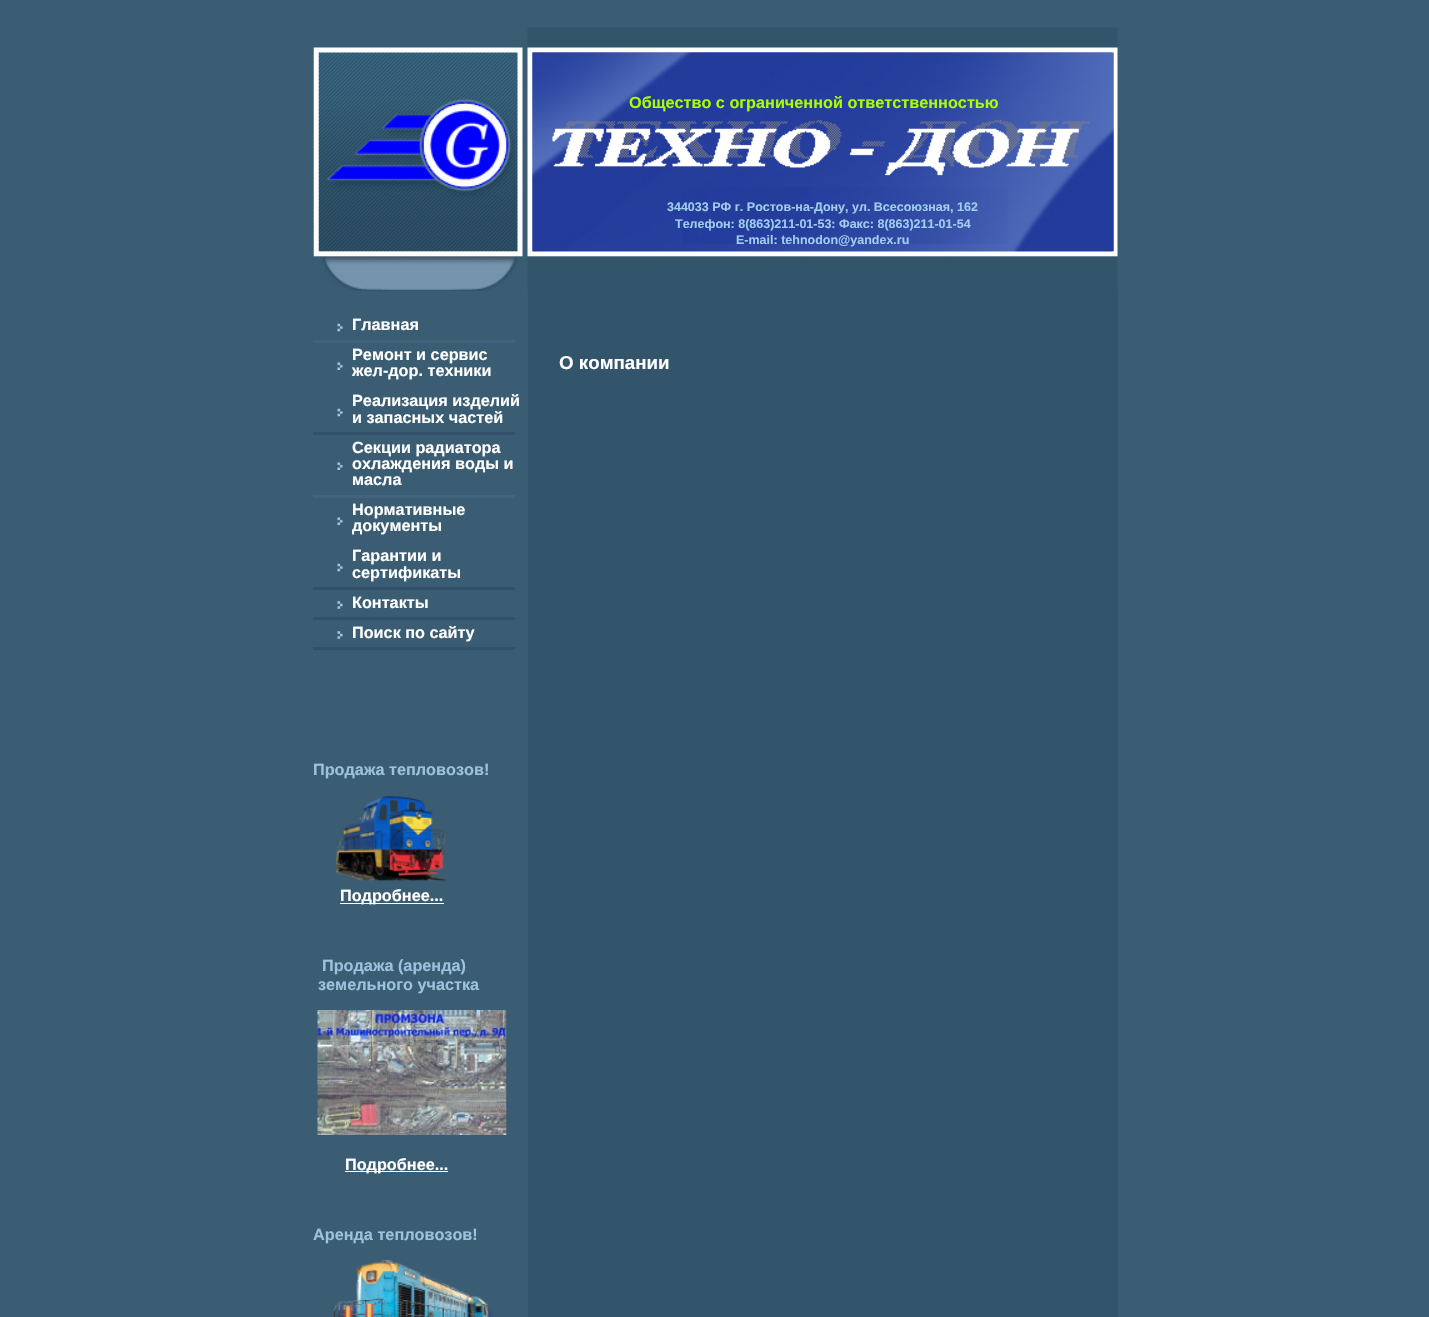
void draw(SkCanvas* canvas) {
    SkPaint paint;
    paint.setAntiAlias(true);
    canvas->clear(0xFF3A5D73);
    canvas->drawImageRect(SkImages::DeferredFromEncodedData(SkData::MakeFromFileName("img1.png")), SkRect::MakeXYWH(313, 27, 805, 264), SkSamplingOptions());
    canvas->drawImageRect(SkImages::DeferredFromEncodedData(SkData::MakeFromFileName("img2.png")), SkRect::MakeXYWH(532, 52, 582, 200), SkSamplingOptions());
    SkFont font1(fontMgr->matchFamilyStyle("Liberation Sans", SkFontStyle::Bold()), 16.25f);
    font1.setSubpixel(true);
    paint.setColor(0xFFA9FF00);
    canvas->drawString("Общество с ограниченной ответственностью", 629, 108, font1, paint);
    canvas->drawImageRect(SkImages::DeferredFromEncodedData(SkData::MakeFromFileName("img3.png")), SkRect::MakeXYWH(552, 119, 538, 57), SkSamplingOptions());
    canvas->drawImageRect(SkImages::DeferredFromEncodedData(SkData::MakeFromFileName("img4.png")), SkRect::MakeXYWH(682, 187, 326, 57), SkSamplingOptions());
    SkFont font2(fontMgr->matchFamilyStyle("Liberation Sans", SkFontStyle::Bold()), 12.5f);
    font2.setSubpixel(true);
    paint.setColor(0xFF9FCDEE);
    canvas->drawString("344033 РФ г. Ростов-на-Дону, ул. Всесоюзная, 162", 667, 211, font2, paint);
    canvas->drawString("Телефон: 8(863)211-01-53: Факс: 8(863)211-01-54", 675, 228, font2, paint);
    canvas->drawString("E-mail: tehnodon@yandex.ru", 736, 244, font2, paint);
    paint.setColor(0xFF42637E);
    canvas->drawRect(SkRect::MakeXYWH(313, 340, 202, 3), paint);
    canvas->drawImageRect(SkImages::DeferredFromEncodedData(SkData::MakeFromFileName("img5.png")), SkRect::MakeXYWH(337, 323, 6, 9), SkSamplingOptions());
    paint.setColor(0xFFFFFFFF);
    canvas->drawString("Главная", 352, 330, font1, paint);
    paint.setColor(0xFF3C5B76);
    canvas->drawRect(SkRect::MakeXYWH(313, 386, 202, 3), paint);
    canvas->drawImageRect(SkImages::DeferredFromEncodedData(SkData::MakeFromFileName("img6.png")), SkRect::MakeXYWH(337, 362, 6, 8), SkSamplingOptions());
    paint.setColor(0xFFFFFFFF);
    canvas->drawString("Ремонт и сервис", 352, 360, font1, paint);
    canvas->drawString("жел-дор. техники", 352, 376, font1, paint);
    paint.setColor(0xFF33506B);
    canvas->drawRect(SkRect::MakeXYWH(313, 432, 202, 3), paint);
    canvas->drawImageRect(SkImages::DeferredFromEncodedData(SkData::MakeFromFileName("img5.png")), SkRect::MakeXYWH(337, 408, 6, 9), SkSamplingOptions());
    paint.setColor(0xFFFFFFFF);
    canvas->drawString("Реализация изделий", 352, 406, font1, paint);
    canvas->drawString("и запасных частей", 352, 423, font1, paint);
    paint.setColor(0xFF42637E);
    canvas->drawRect(SkRect::MakeXYWH(313, 495, 202, 3), paint);
    canvas->drawImageRect(SkImages::DeferredFromEncodedData(SkData::MakeFromFileName("img6.png")), SkRect::MakeXYWH(337, 462, 6, 8), SkSamplingOptions());
    paint.setColor(0xFFFFFFFF);
    canvas->drawString("Секции радиатора", 352, 453, font1, paint);
    canvas->drawString("охлаждения воды и", 352, 469, font1, paint);
    canvas->drawString("масла", 352, 485, font1, paint);
    paint.setColor(0xFF3C5B76);
    canvas->drawRect(SkRect::MakeXYWH(313, 541, 202, 3), paint);
    canvas->drawImageRect(SkImages::DeferredFromEncodedData(SkData::MakeFromFileName("img6.png")), SkRect::MakeXYWH(337, 517, 6, 8), SkSamplingOptions());
    paint.setColor(0xFFFFFFFF);
    canvas->drawString("Нормативные", 352, 515, font1, paint);
    canvas->drawString("документы", 352, 531, font1, paint);
    paint.setColor(0xFF33506B);
    canvas->drawRect(SkRect::MakeXYWH(313, 587, 202, 3), paint);
    canvas->drawImageRect(SkImages::DeferredFromEncodedData(SkData::MakeFromFileName("img5.png")), SkRect::MakeXYWH(337, 563, 6, 9), SkSamplingOptions());
    paint.setColor(0xFFFFFFFF);
    canvas->drawString("Гарантии и", 352, 561, font1, paint);
    canvas->drawString("сертификаты", 352, 578, font1, paint);
    paint.setColor(0xFF33506B);
    canvas->drawRect(SkRect::MakeXYWH(313, 617, 202, 3), paint);
    canvas->drawImageRect(SkImages::DeferredFromEncodedData(SkData::MakeFromFileName("img7.png")), SkRect::MakeXYWH(337, 601, 6, 8), SkSamplingOptions());
    paint.setColor(0xFFFFFFFF);
    canvas->drawString("Контакты", 352, 608, font1, paint);
    paint.setColor(0xFF33506B);
    canvas->drawRect(SkRect::MakeXYWH(313, 647, 202, 3), paint);
    canvas->drawImageRect(SkImages::DeferredFromEncodedData(SkData::MakeFromFileName("img7.png")), SkRect::MakeXYWH(337, 631, 6, 8), SkSamplingOptions());
    paint.setColor(0xFFFFFFFF);
    canvas->drawString("Поиск по сайту", 352, 638, font1, paint);
    paint.setColor(0xFF9CC2DD);
    canvas->drawString("Продажа тепловозов!", 313, 775, font1, paint);
    canvas->drawImageRect(SkImages::DeferredFromEncodedData(SkData::MakeFromFileName("img8.png")), SkRect::MakeXYWH(336, 796, 111, 86), SkSamplingOptions());
    paint.setColor(0xFFFFFFFF);
    canvas->drawRect(SkRect::MakeXYWH(340, 903, 104, 1), paint);
    canvas->drawString("Подробнее...", 340, 901, font1, paint);
    paint.setColor(0xFF9CC2DD);
    canvas->drawString("Продажа (аренда)", 322, 971, font1, paint);
    canvas->drawString("земельного участка", 318, 990, font1, paint);
    canvas->drawImageRect(SkImages::DeferredFromEncodedData(SkData::MakeFromFileName("img9.png")), SkRect::MakeXYWH(317, 1010, 190, 125), SkSamplingOptions());
    paint.setColor(0xFFFFFFFF);
    canvas->drawRect(SkRect::MakeXYWH(345, 1171, 103, 1), paint);
    canvas->drawString("Подробнее...", 345, 1170, font1, paint);
    paint.setColor(0xFF9CC2DD);
    canvas->drawString("Аренда тепловозов!", 313, 1240, font1, paint);
    canvas->drawImageRect(SkImages::DeferredFromEncodedData(SkData::MakeFromFileName("img10.png")), SkRect::MakeXYWH(332, 1260, 161, 57), SkSamplingOptions());
    paint.setColor(0xFF32556B);
    canvas->drawRect(SkRect::MakeXYWH(528, 291, 590, 1026), paint);
    SkFont font3(fontMgr->matchFamilyStyle("Liberation Sans", SkFontStyle::Bold()), 18.75f);
    font3.setSubpixel(true);
    paint.setColor(0xFFFFFFFF);
    canvas->drawString("О компании", 559, 369, font3, paint);
}
